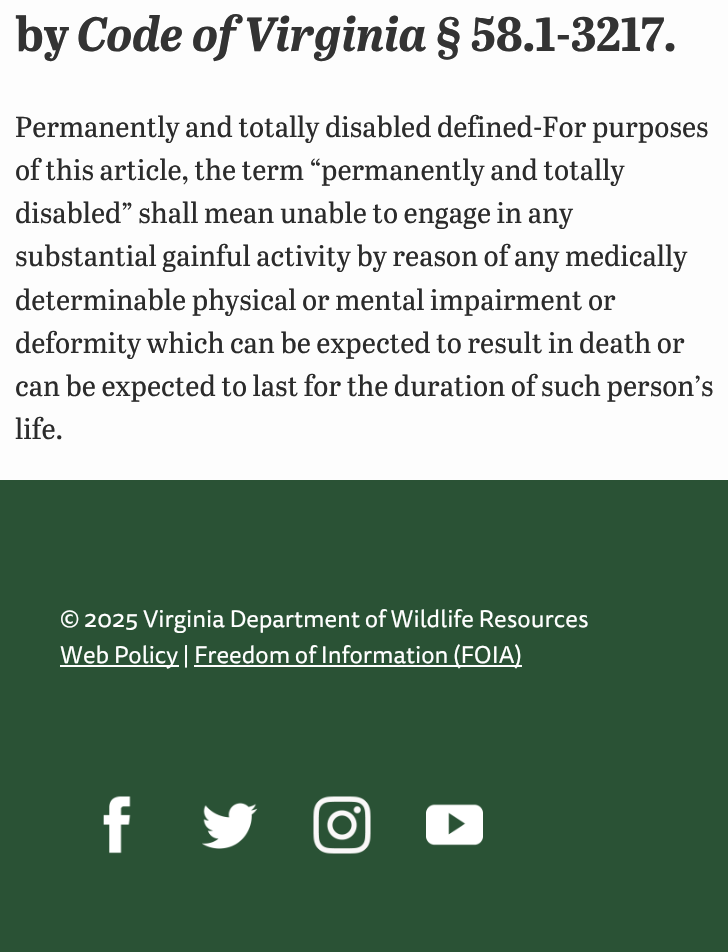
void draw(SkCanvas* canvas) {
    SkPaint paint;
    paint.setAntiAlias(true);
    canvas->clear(0xFFFDFDFD);
    SkFont font1(fontMgr->matchFamilyStyle("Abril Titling", SkFontStyle::Bold()), 48);
    font1.setSubpixel(true);
    paint.setColor(0xFF333333);
    canvas->drawString("by", 15, 51, font1, paint);
    SkFont font2(fontMgr->matchFamilyStyle("Abril Titling", SkFontStyle::BoldItalic()), 48);
    font2.setSubpixel(true);
    canvas->drawString("Code of Virginia", 77, 51, font2, paint);
    canvas->drawString("§ 58.1-3217.", 435, 51, font1, paint);
    SkFont font3(fontMgr->matchFamilyStyle("Abril Titling", SkFontStyle::Normal()), 28.8f);
    font3.setSubpixel(true);
    paint.setColor(0xFF2B2B2B);
    canvas->drawString("Permanently and totally disabled defined-For purposes", 15, 137, font3, paint);
    canvas->drawString("of this article, the term “permanently and totally", 15, 180, font3, paint);
    canvas->drawString("disabled” shall mean unable to engage in any", 15, 223, font3, paint);
    canvas->drawString("substantial gainful activity by reason of any medically", 15, 266, font3, paint);
    canvas->drawString("determinable physical or mental impairment or", 15, 310, font3, paint);
    canvas->drawString("deformity which can be expected to result in death or", 15, 353, font3, paint);
    canvas->drawString("can be expected to last for the duration of such person’s", 15, 396, font3, paint);
    canvas->drawString("life.", 15, 439, font3, paint);
    paint.setColor(0xFF2A5235);
    canvas->drawRect(SkRect::MakeXYWH(0, 480, 728, 472), paint);
    SkFont font4(fontMgr->matchFamilyStyle("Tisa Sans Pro", SkFontStyle::Normal()), 24);
    font4.setSubpixel(true);
    paint.setColor(0xFFFFFFFF);
    canvas->drawString("© 2025 Virginia Department of Wildlife Resources", 60, 627, font4, paint);
    canvas->drawRect(SkRect::MakeXYWH(60, 665, 119, 2), paint);
    canvas->drawString("Web Policy |", 60, 663, font4, paint);
    canvas->drawRect(SkRect::MakeXYWH(194, 665, 328, 2), paint);
    canvas->drawString("Freedom of Information (FOIA)", 194, 663, font4, paint);
    canvas->drawImageRect(SkImages::DeferredFromEncodedData(SkData::MakeFromFileName("img1.png")), SkRect::MakeXYWH(103, 796, 28, 58), SkSamplingOptions());
    canvas->drawImageRect(SkImages::DeferredFromEncodedData(SkData::MakeFromFileName("img2.png")), SkRect::MakeXYWH(202, 802, 56, 47), SkSamplingOptions());
    canvas->drawImageRect(SkImages::DeferredFromEncodedData(SkData::MakeFromFileName("img3.png")), SkRect::MakeXYWH(313, 796, 58, 58), SkSamplingOptions());
    canvas->drawImageRect(SkImages::DeferredFromEncodedData(SkData::MakeFromFileName("img4.png")), SkRect::MakeXYWH(426, 804, 57, 42), SkSamplingOptions());
}
